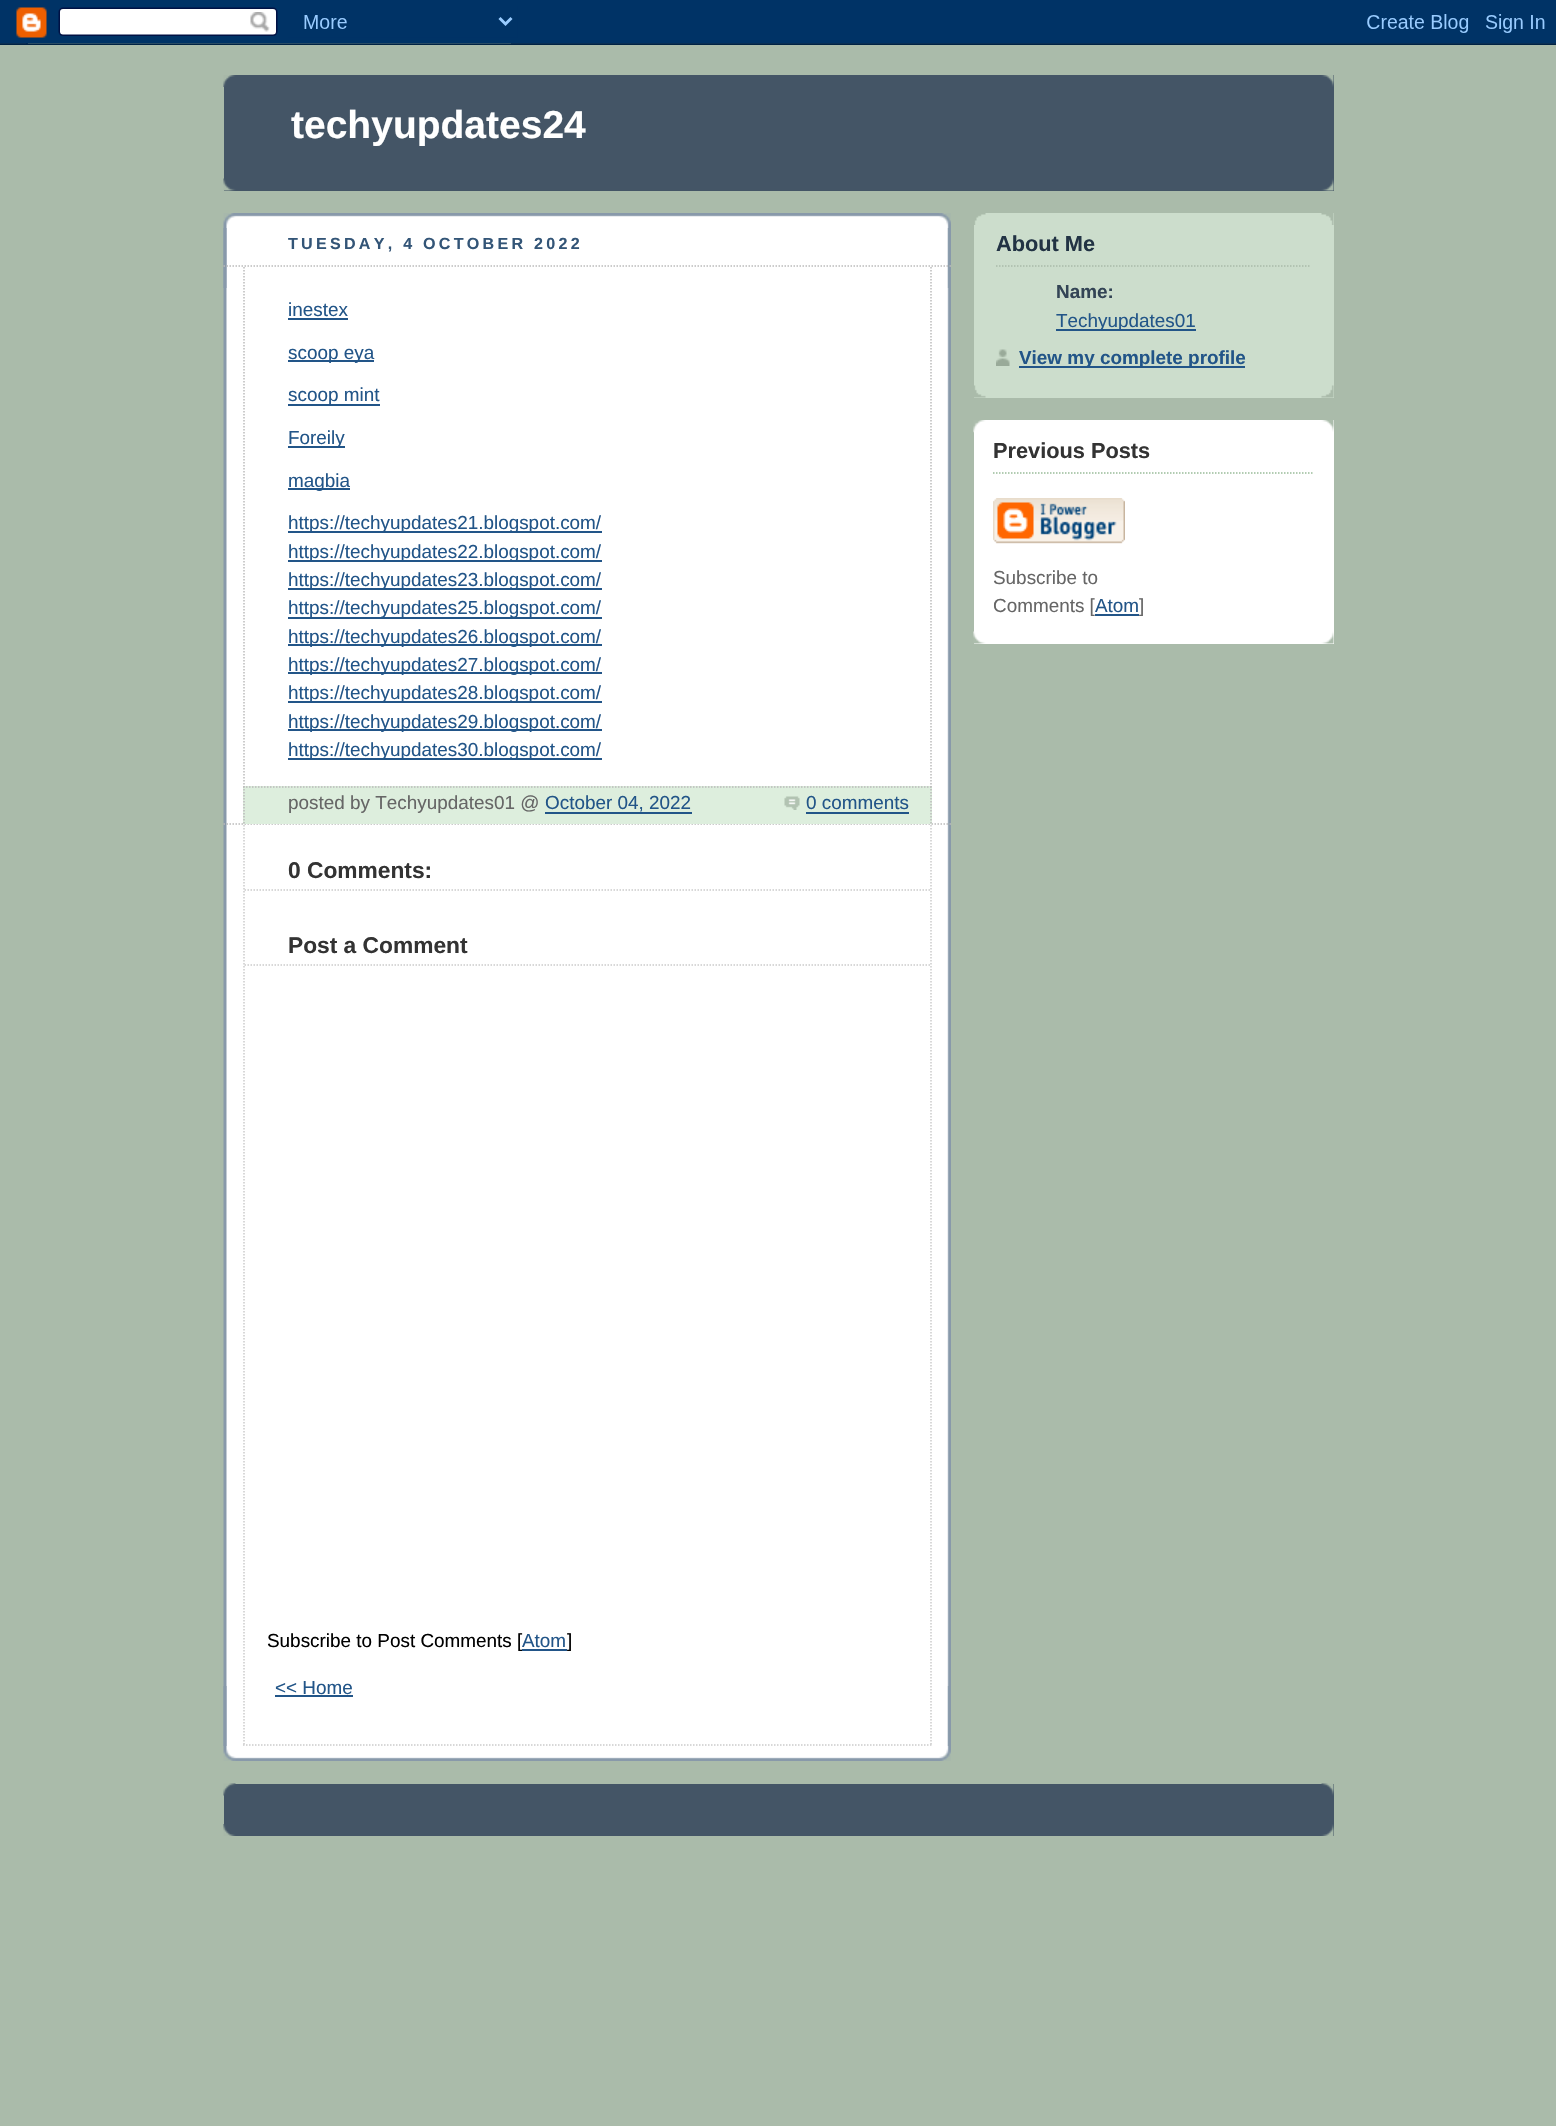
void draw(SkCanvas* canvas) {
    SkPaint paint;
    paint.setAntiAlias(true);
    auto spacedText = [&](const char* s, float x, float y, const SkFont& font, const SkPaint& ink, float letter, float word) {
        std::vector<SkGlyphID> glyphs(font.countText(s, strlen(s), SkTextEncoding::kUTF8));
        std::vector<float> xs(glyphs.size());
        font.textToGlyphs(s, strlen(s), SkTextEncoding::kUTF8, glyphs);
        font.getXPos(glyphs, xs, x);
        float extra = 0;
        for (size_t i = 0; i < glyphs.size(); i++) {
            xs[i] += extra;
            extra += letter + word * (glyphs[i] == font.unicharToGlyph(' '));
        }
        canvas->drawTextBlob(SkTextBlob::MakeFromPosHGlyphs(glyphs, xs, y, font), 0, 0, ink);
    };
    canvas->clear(0xFFAABBAA);
    canvas->drawImageRect(SkImages::DeferredFromEncodedData(SkData::MakeFromFileName("img1.png")), SkRect::MakeXYWH(0, 0, 1556, 45), SkSamplingOptions());
    paint.setColor(0xFF445566);
    canvas->drawRect(SkRect::MakeXYWH(224, 75, 1110, 116), paint);
    canvas->drawImageRect(SkImages::DeferredFromEncodedData(SkData::MakeFromFileName("img2.png")), SkRect::MakeXYWH(223, 75, 1111, 12), SkSamplingOptions());
    canvas->drawImageRect(SkImages::DeferredFromEncodedData(SkData::MakeFromFileName("img3.png")), SkRect::MakeXYWH(223, 178, 1111, 13), SkSamplingOptions());
    SkFont font1(fontMgr->matchFamilyStyle("Liberation Sans", SkFontStyle::Bold()), 39);
    font1.setSubpixel(true);
    paint.setColor(0xFFFFFFFF);
    canvas->drawString("techyupdates24", 291, 138, font1, paint);
    canvas->drawRect(SkRect::MakeXYWH(226, 215, 723, 1544), paint);
    canvas->drawImageRect(SkImages::DeferredFromEncodedData(SkData::MakeFromFileName("img4.png")), SkRect::MakeXYWH(223, 1686, 728, 75), SkSamplingOptions());
    canvas->drawImageRect(SkImages::DeferredFromEncodedData(SkData::MakeFromFileName("img5.png")), SkRect::MakeXYWH(223, 213, 728, 75), SkSamplingOptions());
    canvas->drawImageRect(SkImages::DeferredFromEncodedData(SkData::MakeFromFileName("img6.png")), SkRect::MakeXYWH(223, 228, 728, 1518), SkSamplingOptions());
    SkFont font2(fontMgr->matchFamilyStyle("Liberation Sans", SkFontStyle::Bold()), 16.1f);
    font2.setSubpixel(true);
    paint.setColor(0xFF335577);
    spacedText("TUESDAY, 4 OCTOBER 2022", 288, 249, font2, paint, 3.25f, 0);
    paint.setStyle(SkPaint::kStroke_Style);
    paint.setStrokeWidth(1.5f);
    paint.setColor(0xFFBBBBBB);
    paint.setPathEffect(SkDashPathEffect::Make({{1.5f, 1.5f}}, 0));
    canvas->drawPath(SkPathBuilder().moveTo(223.5f, 266).lineTo(951, 266).detach(), paint);
    paint.setPathEffect(nullptr);
    paint.setPathEffect(SkDashPathEffect::Make({{1.5f, 1.5f}}, 0));
    canvas->drawPath(SkPathBuilder().moveTo(223.5f, 824).lineTo(951, 824).detach(), paint);
    paint.setPathEffect(nullptr);
    paint.setPathEffect(SkDashPathEffect::Make({{1.5f, 1.5f}}, 0));
    canvas->drawPath(SkPathBuilder().moveTo(931, 267).lineTo(931, 786).detach(), paint);
    paint.setPathEffect(nullptr);
    paint.setPathEffect(SkDashPathEffect::Make({{1.5f, 1.5f}}, 0));
    canvas->drawPath(SkPathBuilder().moveTo(244, 267).lineTo(244, 786).detach(), paint);
    paint.setPathEffect(nullptr);
    SkFont font3(fontMgr->matchFamilyStyle("Liberation Sans", SkFontStyle::Normal()), 18.9f);
    font3.setSubpixel(true);
    paint.setStyle(SkPaint::kFill_Style);
    paint.setColor(0xFF225588);
    canvas->drawString("inestex", 288, 316, font3, paint);
    canvas->drawRect(SkRect::MakeXYWH(288, 318, 60, 2), paint);
    canvas->drawRect(SkRect::MakeXYWH(288, 360, 86, 2), paint);
    canvas->drawString("scoop eya", 288, 359, font3, paint);
    canvas->drawRect(SkRect::MakeXYWH(288, 404, 92, 2), paint);
    canvas->drawString("scoop mint", 288, 401, font3, paint);
    canvas->drawRect(SkRect::MakeXYWH(288, 446, 57, 2), paint);
    canvas->drawString("Foreily", 288, 444, font3, paint);
    canvas->drawRect(SkRect::MakeXYWH(288, 488, 62, 2), paint);
    canvas->drawString("magbia", 288, 487, font3, paint);
    canvas->drawRect(SkRect::MakeXYWH(288, 531, 314, 2), paint);
    canvas->drawString("https://techyupdates21.blogspot.com/", 288, 529, font3, paint);
    canvas->drawRect(SkRect::MakeXYWH(288, 560, 314, 2), paint);
    canvas->drawString("https://techyupdates22.blogspot.com/", 288, 558, font3, paint);
    canvas->drawRect(SkRect::MakeXYWH(288, 588, 314, 2), paint);
    canvas->drawString("https://techyupdates23.blogspot.com/", 288, 586, font3, paint);
    canvas->drawRect(SkRect::MakeXYWH(288, 617, 314, 2), paint);
    canvas->drawString("https://techyupdates25.blogspot.com/", 288, 614, font3, paint);
    canvas->drawRect(SkRect::MakeXYWH(288, 644, 314, 2), paint);
    canvas->drawString("https://techyupdates26.blogspot.com/", 288, 643, font3, paint);
    canvas->drawRect(SkRect::MakeXYWH(288, 672, 314, 2), paint);
    canvas->drawString("https://techyupdates27.blogspot.com/", 288, 671, font3, paint);
    canvas->drawRect(SkRect::MakeXYWH(288, 701, 314, 2), paint);
    canvas->drawString("https://techyupdates28.blogspot.com/", 288, 699, font3, paint);
    canvas->drawRect(SkRect::MakeXYWH(288, 729, 314, 2), paint);
    canvas->drawString("https://techyupdates29.blogspot.com/", 288, 728, font3, paint);
    canvas->drawRect(SkRect::MakeXYWH(288, 758, 314, 2), paint);
    canvas->drawString("https://techyupdates30.blogspot.com/", 288, 756, font3, paint);
    paint.setColor(0xFFDDEEDD);
    canvas->drawRect(SkRect::MakeXYWH(243, 786, 689, 38), paint);
    paint.setStyle(SkPaint::kStroke_Style);
    paint.setColor(0xFFBBBBBB);
    paint.setPathEffect(SkDashPathEffect::Make({{1.5f, 1.5f}}, 0));
    canvas->drawPath(SkPathBuilder().moveTo(243, 787).lineTo(931.5f, 787).detach(), paint);
    paint.setPathEffect(nullptr);
    paint.setPathEffect(SkDashPathEffect::Make({{1.5f, 1.5f}}, 0));
    canvas->drawPath(SkPathBuilder().moveTo(931, 786).lineTo(931, 823.5f).detach(), paint);
    paint.setPathEffect(nullptr);
    paint.setPathEffect(SkDashPathEffect::Make({{1.5f, 1.5f}}, 0));
    canvas->drawPath(SkPathBuilder().moveTo(244, 786).lineTo(244, 823.5f).detach(), paint);
    paint.setPathEffect(nullptr);
    paint.setStyle(SkPaint::kFill_Style);
    paint.setColor(0xFF666666);
    canvas->drawString("posted by Techyupdates01 @", 288, 809, font3, paint);
    paint.setColor(0xFF225588);
    canvas->drawString("October 04, 2022", 545, 809, font3, paint);
    canvas->drawRect(SkRect::MakeXYWH(545, 812, 147, 2), paint);
    canvas->drawImageRect(SkImages::DeferredFromEncodedData(SkData::MakeFromFileName("img7.png")), SkRect::MakeXYWH(784, 796, 16, 14), SkSamplingOptions());
    canvas->drawString("0 comments", 806, 809, font3, paint);
    canvas->drawRect(SkRect::MakeXYWH(806, 812, 103, 2), paint);
    paint.setStyle(SkPaint::kStroke_Style);
    paint.setColor(0xFFCCCCCC);
    paint.setPathEffect(SkDashPathEffect::Make({{1.5f, 1.5f}}, 0));
    canvas->drawPath(SkPathBuilder().moveTo(931, 825).lineTo(931, 1746).detach(), paint);
    paint.setPathEffect(nullptr);
    paint.setPathEffect(SkDashPathEffect::Make({{1.5f, 1.5f}}, 0));
    canvas->drawPath(SkPathBuilder().moveTo(243, 1745).lineTo(931.5f, 1745).detach(), paint);
    paint.setPathEffect(nullptr);
    paint.setPathEffect(SkDashPathEffect::Make({{1.5f, 1.5f}}, 0));
    canvas->drawPath(SkPathBuilder().moveTo(244, 825).lineTo(244, 1746).detach(), paint);
    paint.setPathEffect(nullptr);
    paint.setPathEffect(SkDashPathEffect::Make({{1.5f, 1.5f}}, 0));
    canvas->drawPath(SkPathBuilder().moveTo(244.5f, 890).lineTo(930, 890).detach(), paint);
    paint.setPathEffect(nullptr);
    SkFont font4(fontMgr->matchFamilyStyle("Liberation Sans", SkFontStyle::Bold()), 22.75f);
    font4.setSubpixel(true);
    paint.setStyle(SkPaint::kFill_Style);
    paint.setColor(0xFF333333);
    canvas->drawString("0 Comments:", 288, 878, font4, paint);
    paint.setStyle(SkPaint::kStroke_Style);
    paint.setColor(0xFFCCCCCC);
    paint.setPathEffect(SkDashPathEffect::Make({{1.5f, 1.5f}}, 0));
    canvas->drawPath(SkPathBuilder().moveTo(244.5f, 965).lineTo(930, 965).detach(), paint);
    paint.setPathEffect(nullptr);
    paint.setStyle(SkPaint::kFill_Style);
    paint.setColor(0xFF333333);
    canvas->drawString("Post a Comment", 288, 953, font4, paint);
    paint.setColor(0xFF000000);
    canvas->drawString("Subscribe to Post Comments [", 267, 1647, font3, paint);
    paint.setColor(0xFF225588);
    canvas->drawString("Atom", 522, 1647, font3, paint);
    canvas->drawRect(SkRect::MakeXYWH(522, 1649, 45, 2), paint);
    paint.setColor(0xFF000000);
    canvas->drawString("]", 567, 1647, font3, paint);
    paint.setColor(0xFF225588);
    canvas->drawString("<< Home", 275, 1694, font3, paint);
    canvas->drawRect(SkRect::MakeXYWH(275, 1695, 78, 2), paint);
    paint.setColor(0xFFCCDDCC);
    canvas->drawRect(SkRect::MakeXYWH(974, 213, 360, 185), paint);
    canvas->drawImageRect(SkImages::DeferredFromEncodedData(SkData::MakeFromFileName("img8.png")), SkRect::MakeXYWH(974, 385, 360, 13), SkSamplingOptions());
    canvas->drawImageRect(SkImages::DeferredFromEncodedData(SkData::MakeFromFileName("img9.png")), SkRect::MakeXYWH(974, 213, 360, 12), SkSamplingOptions());
    SkFont font5(fontMgr->matchFamilyStyle("Liberation Sans", SkFontStyle::Bold()), 21.75f);
    font5.setSubpixel(true);
    paint.setColor(0xFF223344);
    canvas->drawString("About Me", 996, 251, font5, paint);
    paint.setStyle(SkPaint::kStroke_Style);
    paint.setColor(0xFFAABBAA);
    paint.setPathEffect(SkDashPathEffect::Make({{1.5f, 1.5f}}, 0));
    canvas->drawPath(SkPathBuilder().moveTo(996, 266).lineTo(1311, 266).detach(), paint);
    paint.setPathEffect(nullptr);
    SkFont font6(fontMgr->matchFamilyStyle("Liberation Sans", SkFontStyle::Bold()), 18.9f);
    font6.setSubpixel(true);
    paint.setStyle(SkPaint::kFill_Style);
    paint.setColor(0xFF334455);
    canvas->drawString("Name:", 1056, 298, font6, paint);
    paint.setColor(0xFF225588);
    canvas->drawRect(SkRect::MakeXYWH(1056, 329, 140, 2), paint);
    canvas->drawString("Techyupdates01", 1056, 327, font3, paint);
    canvas->drawImageRect(SkImages::DeferredFromEncodedData(SkData::MakeFromFileName("img10.png")), SkRect::MakeXYWH(996, 349, 14, 17), SkSamplingOptions());
    canvas->drawRect(SkRect::MakeXYWH(1019, 366, 226, 2), paint);
    canvas->drawString("View my complete profile", 1019, 364, font6, paint);
    paint.setColor(0xFFFFFFFF);
    canvas->drawRect(SkRect::MakeXYWH(974, 420, 360, 224), paint);
    canvas->drawImageRect(SkImages::DeferredFromEncodedData(SkData::MakeFromFileName("img11.png")), SkRect::MakeXYWH(973, 420, 361, 13), SkSamplingOptions());
    canvas->drawImageRect(SkImages::DeferredFromEncodedData(SkData::MakeFromFileName("img12.png")), SkRect::MakeXYWH(973, 631, 361, 13), SkSamplingOptions());
    paint.setStyle(SkPaint::kStroke_Style);
    paint.setColor(0xFF99BB99);
    paint.setPathEffect(SkDashPathEffect::Make({{1.5f, 1.5f}}, 0));
    canvas->drawPath(SkPathBuilder().moveTo(993, 473).lineTo(1314, 473).detach(), paint);
    paint.setPathEffect(nullptr);
    paint.setStyle(SkPaint::kFill_Style);
    paint.setColor(0xFF333333);
    canvas->drawString("Previous Posts", 993, 458, font5, paint);
    canvas->drawImageRect(SkImages::DeferredFromEncodedData(SkData::MakeFromFileName("img13.png")), SkRect::MakeXYWH(993, 498, 132, 46), SkSamplingOptions());
    paint.setColor(0xFF666666);
    canvas->drawString("Subscribe to", 993, 584, font3, paint);
    canvas->drawString("Comments [", 993, 612, font3, paint);
    paint.setColor(0xFF225588);
    canvas->drawString("Atom", 1095, 612, font3, paint);
    canvas->drawRect(SkRect::MakeXYWH(1095, 614, 44, 2), paint);
    paint.setColor(0xFF666666);
    canvas->drawString("]", 1139, 612, font3, paint);
    paint.setColor(0xFF445566);
    canvas->drawRect(SkRect::MakeXYWH(224, 1784, 1110, 52), paint);
    canvas->drawImageRect(SkImages::DeferredFromEncodedData(SkData::MakeFromFileName("img14.png")), SkRect::MakeXYWH(223, 1783, 1111, 13), SkSamplingOptions());
    canvas->drawImageRect(SkImages::DeferredFromEncodedData(SkData::MakeFromFileName("img15.png")), SkRect::MakeXYWH(223, 1824, 1111, 12), SkSamplingOptions());
}
